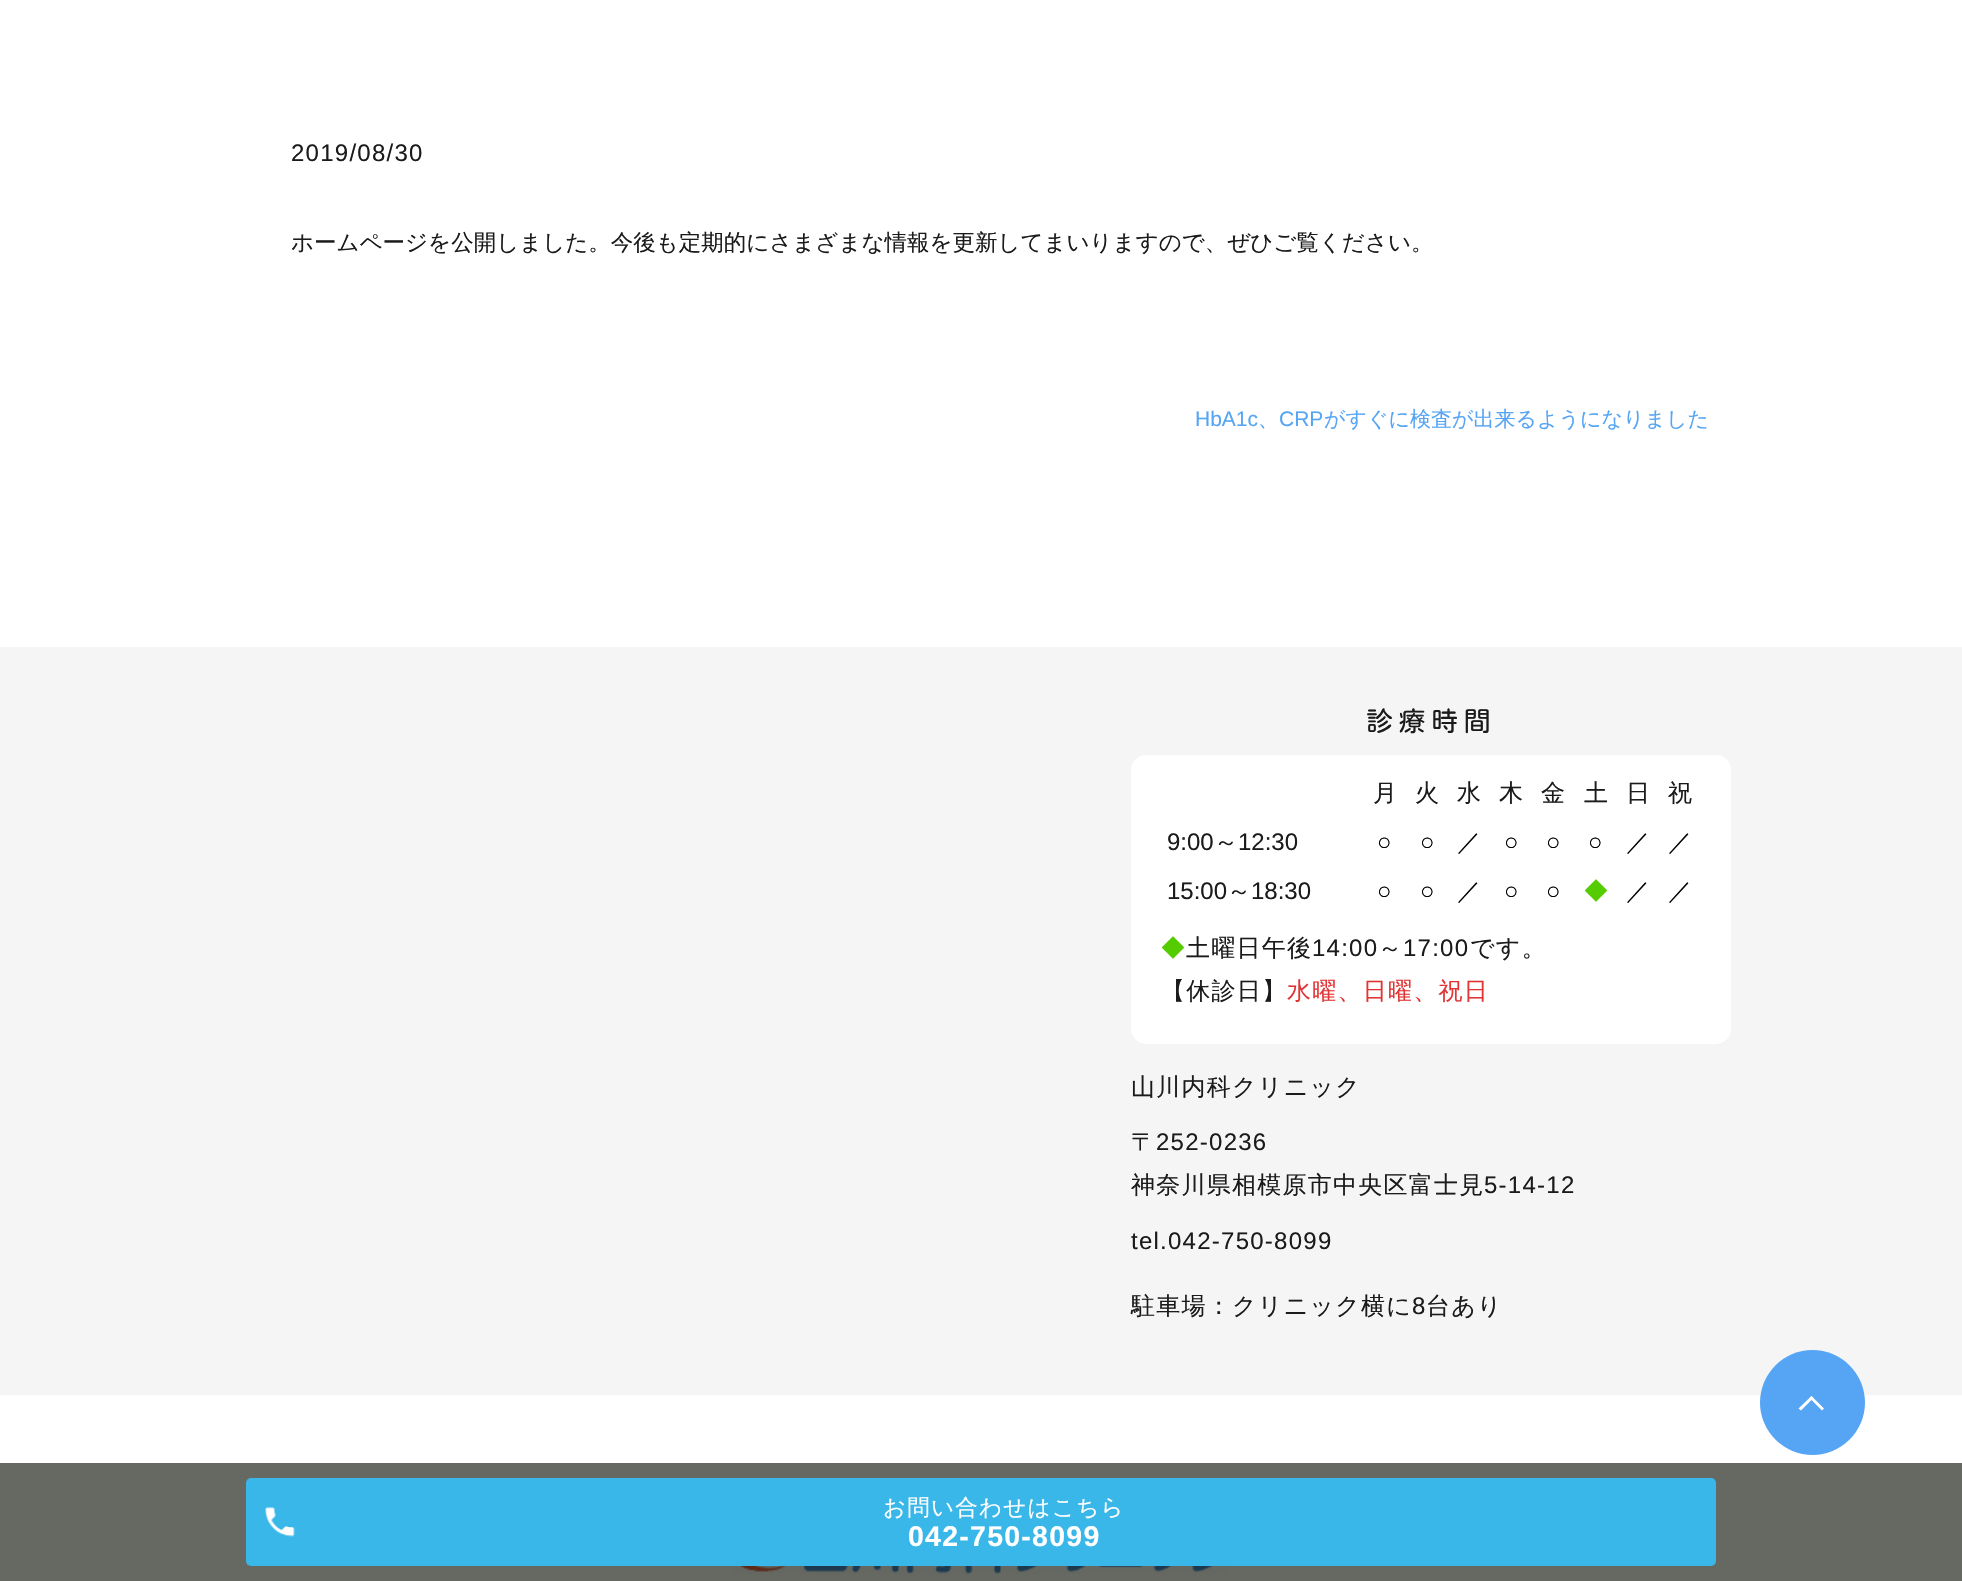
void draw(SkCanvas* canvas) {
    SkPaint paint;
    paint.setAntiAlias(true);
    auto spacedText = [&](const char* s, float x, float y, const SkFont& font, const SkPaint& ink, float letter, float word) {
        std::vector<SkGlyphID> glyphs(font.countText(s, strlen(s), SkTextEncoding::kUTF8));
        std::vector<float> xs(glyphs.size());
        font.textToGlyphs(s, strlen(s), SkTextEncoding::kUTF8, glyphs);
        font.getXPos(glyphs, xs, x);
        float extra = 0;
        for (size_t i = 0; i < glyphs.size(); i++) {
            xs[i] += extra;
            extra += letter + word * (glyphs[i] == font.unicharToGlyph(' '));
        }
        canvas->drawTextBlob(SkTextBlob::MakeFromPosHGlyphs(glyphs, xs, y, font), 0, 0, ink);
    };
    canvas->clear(0xFFFFFFFF);
    paint.setColor(0xFF656962);
    canvas->drawRect(SkRect::MakeXYWH(0, 1463, 1962, 118), paint);
    SkFont font1(fontMgr->matchFamilyStyle("Liberation Sans", SkFontStyle::Normal()), 24);
    font1.setSubpixel(true);
    paint.setColor(0xFF1B1B1B);
    spacedText("2019/08/30", 291, 161, font1, paint, 1.25f, 0);
    SkFont font2(fontMgr->matchFamilyStyle("WenQuanYi Zen Hei", SkFontStyle(500, SkFontStyle::kNormal_Width, SkFontStyle::kUpright_Slant)), 22.5f);
    font2.setSubpixel(true);
    canvas->drawString("ホームページを公開しました。今後も定期的にさまざまな情報を更新してまいりますので、ぜひご覧ください。", 291, 250, font2, paint);
    SkFont font3(fontMgr->matchFamilyStyle("Liberation Sans", SkFontStyle::Normal()), 21);
    font3.setSubpixel(true);
    paint.setColor(0xFF56A5F4);
    canvas->drawString("HbA1c", 1195, 426, font3, paint);
    SkFont font4(fontMgr->matchFamilyStyle("WenQuanYi Zen Hei", SkFontStyle(500, SkFontStyle::kNormal_Width, SkFontStyle::kUpright_Slant)), 21);
    font4.setSubpixel(true);
    canvas->drawString("、", 1258, 426, font4, paint);
    canvas->drawString("CRP", 1279, 426, font3, paint);
    canvas->drawString("がすぐに検査が出来るようになりました", 1324, 426, font4, paint);
    paint.setColor(0xFFF5F5F5);
    canvas->drawRect(SkRect::MakeXYWH(0, 647, 1962, 748), paint);
    SkFont font5(fontMgr->matchFamilyStyle("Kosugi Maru", SkFontStyle::Normal()), 27);
    font5.setSubpixel(true);
    paint.setColor(0xFF1B1B1B);
    spacedText("診療時間", 1366, 731, font5, paint, 5.5f, 0);
    paint.setColor(0xFFFFFFFF);
    canvas->drawRoundRect(SkRect::MakeXYWH(1131, 755, 600, 289), 15, 15, paint);
    SkFont font6(fontMgr->matchFamilyStyle("WenQuanYi Zen Hei", SkFontStyle(500, SkFontStyle::kNormal_Width, SkFontStyle::kUpright_Slant)), 24);
    font6.setSubpixel(true);
    paint.setColor(0xFF1B1B1B);
    canvas->drawString("月", 1373, 801, font6, paint);
    canvas->drawString("火", 1415, 801, font6, paint);
    canvas->drawString("水", 1457, 801, font6, paint);
    canvas->drawString("木", 1499, 801, font6, paint);
    canvas->drawString("金", 1541, 801, font6, paint);
    canvas->drawString("土", 1584, 801, font6, paint);
    canvas->drawString("日", 1626, 801, font6, paint);
    canvas->drawString("祝", 1668, 801, font6, paint);
    canvas->drawString("9:00", 1167, 850, font1, paint);
    canvas->drawString("～", 1214, 850, font6, paint);
    canvas->drawString("12:30", 1238, 850, font1, paint);
    paint.setColor(0xFF000000);
    canvas->drawString("○", 1377, 850, font1, paint);
    canvas->drawString("○", 1420, 850, font1, paint);
    canvas->drawString("／", 1457, 850, font6, paint);
    canvas->drawString("○", 1504, 850, font1, paint);
    canvas->drawString("○", 1546, 850, font1, paint);
    canvas->drawString("○", 1588, 850, font1, paint);
    canvas->drawString("／", 1626, 850, font6, paint);
    canvas->drawString("／", 1668, 850, font6, paint);
    paint.setColor(0xFF1B1B1B);
    canvas->drawString("15:00", 1167, 899, font1, paint);
    canvas->drawString("～", 1227, 899, font6, paint);
    canvas->drawString("18:30", 1251, 899, font1, paint);
    paint.setColor(0xFF000000);
    canvas->drawString("○", 1377, 899, font1, paint);
    canvas->drawString("○", 1420, 899, font1, paint);
    canvas->drawString("／", 1457, 899, font6, paint);
    canvas->drawString("○", 1504, 899, font1, paint);
    canvas->drawString("○", 1546, 899, font1, paint);
    paint.setColor(0xFF55CC00);
    canvas->drawString("◆", 1584, 899, font6, paint);
    paint.setColor(0xFF000000);
    canvas->drawString("／", 1626, 899, font6, paint);
    canvas->drawString("／", 1668, 899, font6, paint);
    paint.setColor(0xFF55CC00);
    spacedText("◆", 1161, 956, font6, paint, 1.25f, 0);
    paint.setColor(0xFF1B1B1B);
    spacedText("土曜日午後", 1186, 956, font6, paint, 1.25f, 0);
    spacedText("14:00", 1312, 956, font1, paint, 1.25f, 0);
    spacedText("～", 1378, 956, font6, paint, 1.25f, 0);
    spacedText("17:00", 1403, 956, font1, paint, 1.25f, 0);
    spacedText("です。", 1470, 956, font6, paint, 1.25f, 0);
    spacedText("【休診日】", 1161, 999, font6, paint, 1.25f, 0);
    paint.setColor(0xFFE13535);
    spacedText("水曜、日曜、祝日", 1287, 999, font6, paint, 1.25f, 0);
    paint.setColor(0xFF1B1B1B);
    spacedText("山川内科クリニック", 1131, 1095, font6, paint, 1.25f, 0);
    spacedText("〒", 1131, 1150, font6, paint, 1.25f, 0);
    spacedText("252-0236", 1156, 1150, font1, paint, 1.25f, 0);
    spacedText("神奈川県相模原市中央区富士見", 1131, 1193, font6, paint, 1.25f, 0);
    spacedText("5-14-12", 1484, 1193, font1, paint, 1.25f, 0);
    spacedText("tel.042-750-8099", 1131, 1249, font1, paint, 1.25f, 0);
    spacedText("駐車場：クリニック横に", 1131, 1314, font6, paint, 1.25f, 0);
    spacedText("8", 1412, 1314, font1, paint, 1.25f, 0);
    spacedText("台あり", 1426, 1314, font6, paint, 1.25f, 0);
    canvas->drawImageRect(SkImages::DeferredFromEncodedData(SkData::MakeFromFileName("img1.png")), SkRect::MakeXYWH(733, 1566, 496, 8), SkSamplingOptions());
    paint.setColor(0xFF56A5F4);
    canvas->drawCircle(1812.5f, 1402.5f, 52.5f, paint);
    paint.setColor(0xFFFFFFFF);
    canvas->drawPath(SkPathBuilder().moveTo(1811.5f, 1396).lineTo(1824, 1408.5f).lineTo(1822, 1410.5f).lineTo(1809.5f, 1398).close().detach(), paint);
    canvas->drawPath(SkPathBuilder().moveTo(1811.5f, 1396).lineTo(1813.5f, 1398).lineTo(1801, 1410.5f).lineTo(1798.5f, 1408.5f).close().detach(), paint);
    paint.setColor(0xFF39B7E9);
    canvas->drawRoundRect(SkRect::MakeXYWH(246, 1478, 1470, 88), 5, 5, paint);
    canvas->drawImageRect(SkImages::DeferredFromEncodedData(SkData::MakeFromFileName("img2.png")), SkRect::MakeXYWH(265, 1507, 30, 30), SkSamplingOptions());
    paint.setColor(0xFFFFFFFF);
    spacedText("お問い合わせはこちら", 883, 1515, font2, paint, 1.25f, 0);
    SkFont font7(fontMgr->matchFamilyStyle("Liberation Sans", SkFontStyle::Bold()), 28.5f);
    font7.setSubpixel(true);
    spacedText("042-750-8099", 908, 1546, font7, paint, 1.25f, 0);
}
